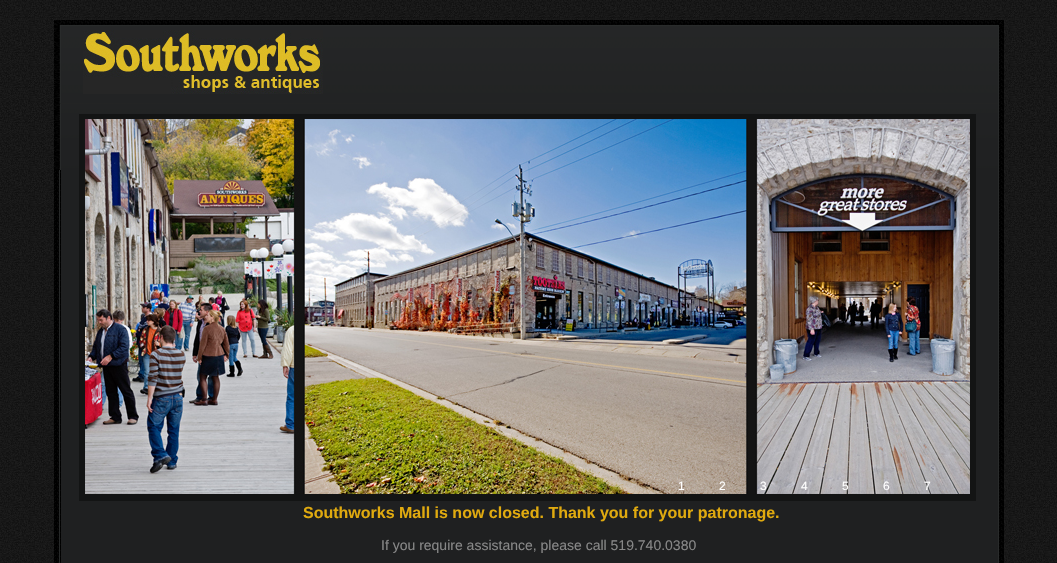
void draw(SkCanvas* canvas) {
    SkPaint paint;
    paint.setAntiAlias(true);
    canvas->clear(0xFFFFFFFF);
    canvas->drawImageRect(SkImages::DeferredFromEncodedData(SkData::MakeFromFileName("img1.png")), SkRect::MakeXYWH(0, 0, 1057, 563), SkSamplingOptions());
    paint.setColor(0xFF1F2021);
    canvas->drawRect(SkRect::MakeXYWH(61, 170, 937, 393), paint);
    canvas->drawImageRect(SkImages::DeferredFromEncodedData(SkData::MakeFromFileName("img2.png")), SkRect::MakeXYWH(54, 170, 7, 393), SkSamplingOptions());
    canvas->drawImageRect(SkImages::DeferredFromEncodedData(SkData::MakeFromFileName("img3.png")), SkRect::MakeXYWH(61, 20, 937, 150), SkSamplingOptions());
    canvas->drawImageRect(SkImages::DeferredFromEncodedData(SkData::MakeFromFileName("img4.png")), SkRect::MakeXYWH(998, 20, 6, 543), SkSamplingOptions());
    canvas->drawImageRect(SkImages::DeferredFromEncodedData(SkData::MakeFromFileName("img5.png")), SkRect::MakeXYWH(54, 20, 7, 150), SkSamplingOptions());
    canvas->drawImageRect(SkImages::DeferredFromEncodedData(SkData::MakeFromFileName("img6.png")), SkRect::MakeXYWH(998, 20, 5, 6), SkSamplingOptions());
    canvas->drawImageRect(SkImages::DeferredFromEncodedData(SkData::MakeFromFileName("img7.png")), SkRect::MakeXYWH(83, 30, 240, 64), SkSamplingOptions());
    paint.setColor(0xFF131414);
    canvas->drawRect(SkRect::MakeXYWH(79, 114, 897, 5), paint);
    canvas->drawRect(SkRect::MakeXYWH(970, 114, 6, 387), paint);
    canvas->drawRect(SkRect::MakeXYWH(79, 494, 897, 7), paint);
    canvas->drawRect(SkRect::MakeXYWH(79, 114, 6, 387), paint);
    canvas->drawImageRect(SkImages::DeferredFromEncodedData(SkData::MakeFromFileName("img8.png")), SkRect::MakeXYWH(85, 119, 885, 375), SkSamplingOptions());
    SkFont font1(fontMgr->matchFamilyStyle("Liberation Sans", SkFontStyle::Normal()), 12);
    font1.setSubpixel(true);
    paint.setColor(0xFFFFFFFF);
    canvas->drawString("1", 678, 490, font1, paint);
    canvas->drawString("2", 719, 490, font1, paint);
    canvas->drawString("3", 760, 490, font1, paint);
    canvas->drawString("4", 801, 490, font1, paint);
    canvas->drawString("5", 842, 490, font1, paint);
    canvas->drawString("6", 883, 490, font1, paint);
    canvas->drawString("7", 924, 490, font1, paint);
    SkFont font2(fontMgr->matchFamilyStyle("Liberation Sans", SkFontStyle::Bold()), 16);
    font2.setSubpixel(true);
    paint.setColor(0xFFE0AA0F);
    canvas->drawString("Southworks Mall is now closed. Thank you for your patronage.", 303, 518, font2, paint);
    SkFont font3(fontMgr->matchFamilyStyle("Liberation Sans", SkFontStyle::Normal()), 14);
    font3.setSubpixel(true);
    paint.setColor(0xFF888888);
    canvas->drawString("If you require assistance, please call 519.740.0380", 381, 550, font3, paint);
}
